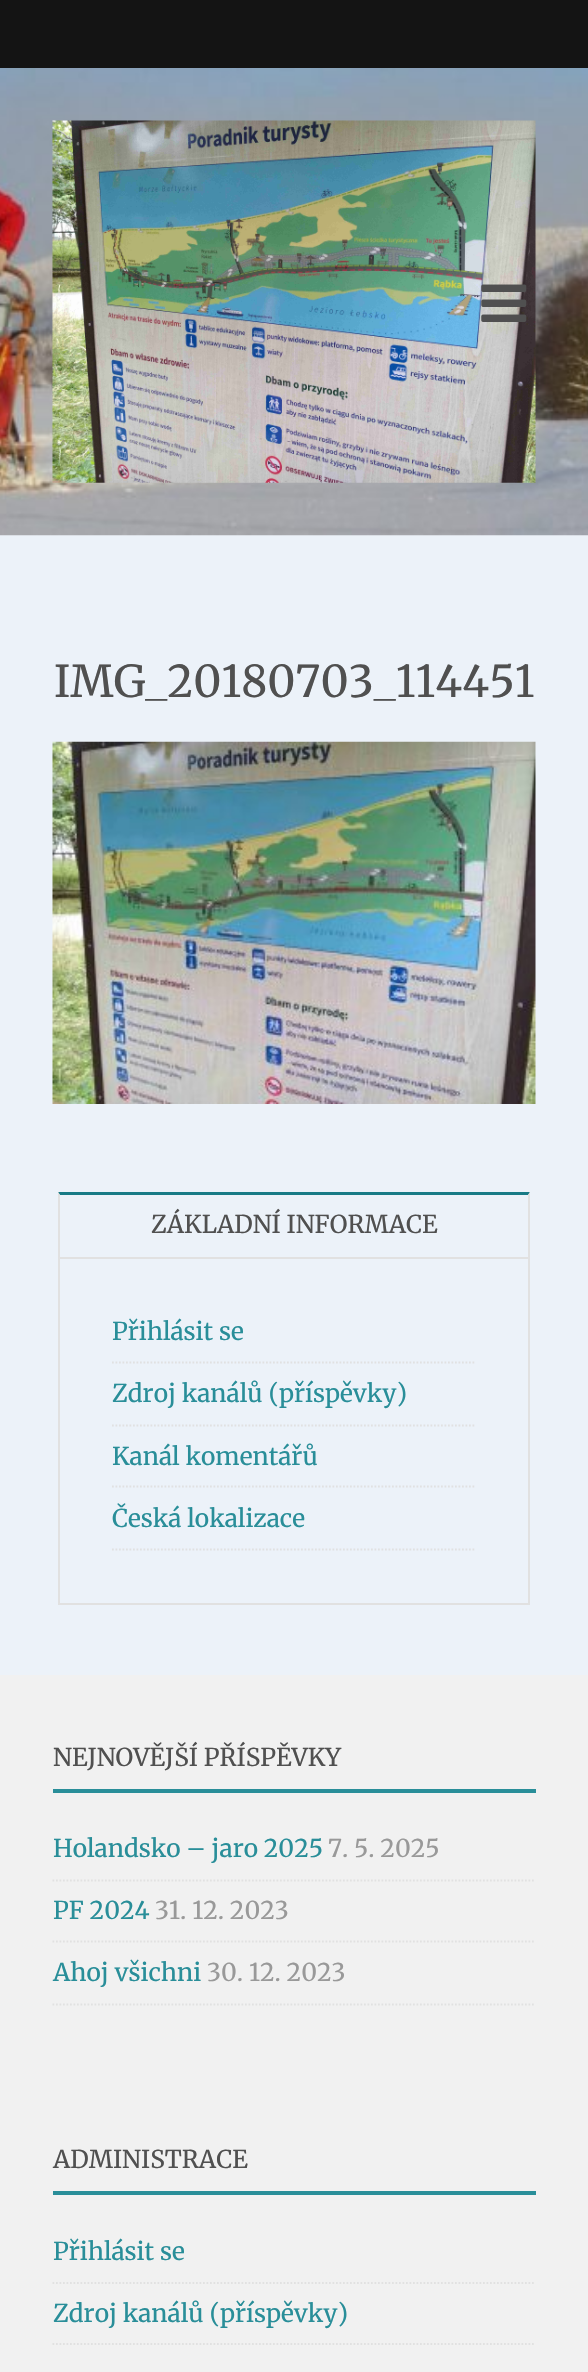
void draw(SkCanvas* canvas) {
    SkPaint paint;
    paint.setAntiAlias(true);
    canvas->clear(0xFFECF2F9);
    paint.setColor(0xFF141414);
    canvas->drawRect(SkRect::MakeXYWH(0, 0, 588, 68), paint);
    canvas->drawImageRect(SkImages::DeferredFromEncodedData(SkData::MakeFromFileName("img1.png")), SkRect::MakeXYWH(0, 68, 588, 468), SkSamplingOptions());
    canvas->drawImageRect(SkImages::DeferredFromEncodedData(SkData::MakeFromFileName("img2.png")), SkRect::MakeXYWH(52, 120, 484, 363), SkSamplingOptions());
    canvas->drawImageRect(SkImages::DeferredFromEncodedData(SkData::MakeFromFileName("img3.png")), SkRect::MakeXYWH(481, 284, 46, 38), SkSamplingOptions());
    SkFont font1(fontMgr->matchFamilyStyle("Merriweather", SkFontStyle(300, SkFontStyle::kNormal_Width, SkFontStyle::kUpright_Slant)), 43.75f);
    font1.setSubpixel(true);
    paint.setColor(0xFF505050);
    canvas->drawString("IMG_20180703_114451", 54, 697, font1, paint);
    canvas->drawImageRect(SkImages::DeferredFromEncodedData(SkData::MakeFromFileName("img4.png")), SkRect::MakeXYWH(52, 741, 484, 363), SkSamplingOptions());
    paint.setStyle(SkPaint::kStroke_Style);
    paint.setStrokeWidth(2);
    paint.setColor(0xFFE1E1E1);
    canvas->drawRect(SkRect::MakeXYWH(59, 1193, 470, 411), paint);
    paint.setStyle(SkPaint::kFill_Style);
    paint.setColor(0xFF187B86);
    canvas->drawPath(SkPathBuilder().moveTo(58, 1192).lineTo(530, 1192).lineTo(528, 1195).lineTo(60, 1195).close().detach(), paint);
    paint.setColor(0xFFE1E1E1);
    canvas->drawPath(SkPathBuilder().moveTo(530, 1192).lineTo(530, 1258).lineTo(528, 1256).lineTo(528, 1195).close().detach(), paint);
    canvas->drawRect(SkRect::MakeXYWH(58, 1257, 472, 2), paint);
    canvas->drawPath(SkPathBuilder().moveTo(58, 1258).lineTo(58, 1192).lineTo(60, 1195).lineTo(60, 1256).close().detach(), paint);
    SkFont font2(fontMgr->matchFamilyStyle("Merriweather", SkFontStyle(300, SkFontStyle::kNormal_Width, SkFontStyle::kUpright_Slant)), 24.5f);
    font2.setSubpixel(true);
    paint.setColor(0xFF505050);
    canvas->drawString("ZÁKLADNÍ INFORMACE", 151, 1233, font2, paint);
    paint.setStyle(SkPaint::kStroke_Style);
    paint.setStrokeWidth(1.8f);
    paint.setColor(0xFFE1E1E1);
    paint.setPathEffect(SkDashPathEffect::Make({{1.75f, 1.75f}}, 0));
    canvas->drawPath(SkPathBuilder().moveTo(112, 1362.5f).lineTo(476, 1362.5f).detach(), paint);
    paint.setPathEffect(nullptr);
    paint.setStyle(SkPaint::kFill_Style);
    paint.setColor(0xFF298E99);
    canvas->drawString("Přihlásit se", 112, 1340, font2, paint);
    paint.setStyle(SkPaint::kStroke_Style);
    paint.setColor(0xFFE1E1E1);
    paint.setPathEffect(SkDashPathEffect::Make({{1.75f, 1.75f}}, 0));
    canvas->drawPath(SkPathBuilder().moveTo(112, 1425.5f).lineTo(476, 1425.5f).detach(), paint);
    paint.setPathEffect(nullptr);
    paint.setStyle(SkPaint::kFill_Style);
    paint.setColor(0xFF298E99);
    canvas->drawString("Zdroj kanálů (příspěvky)", 112, 1402, font2, paint);
    paint.setStyle(SkPaint::kStroke_Style);
    paint.setColor(0xFFE1E1E1);
    paint.setPathEffect(SkDashPathEffect::Make({{1.75f, 1.75f}}, 0));
    canvas->drawPath(SkPathBuilder().moveTo(112, 1486.5f).lineTo(476, 1486.5f).detach(), paint);
    paint.setPathEffect(nullptr);
    paint.setStyle(SkPaint::kFill_Style);
    paint.setColor(0xFF298E99);
    canvas->drawString("Kanál komentářů", 112, 1465, font2, paint);
    paint.setStyle(SkPaint::kStroke_Style);
    paint.setColor(0xFFE1E1E1);
    paint.setPathEffect(SkDashPathEffect::Make({{1.75f, 1.75f}}, 0));
    canvas->drawPath(SkPathBuilder().moveTo(112, 1549.5f).lineTo(476, 1549.5f).detach(), paint);
    paint.setPathEffect(nullptr);
    paint.setStyle(SkPaint::kFill_Style);
    paint.setColor(0xFF298E99);
    canvas->drawString("Česká lokalizace", 112, 1527, font2, paint);
    paint.setColor(0xFFF1F1F1);
    canvas->drawRect(SkRect::MakeXYWH(0, 1675, 588, 697), paint);
    paint.setColor(0xFF505050);
    canvas->drawString("NEJNOVĚJŠÍ PŘÍSPĚVKY", 53, 1766, font2, paint);
    paint.setColor(0xFF298E99);
    canvas->drawRect(SkRect::MakeXYWH(53, 1789, 483, 4), paint);
    paint.setStyle(SkPaint::kStroke_Style);
    paint.setColor(0xFFE1E1E1);
    paint.setPathEffect(SkDashPathEffect::Make({{1.75f, 1.75f}}, 0));
    canvas->drawPath(SkPathBuilder().moveTo(52.5f, 1880.5f).lineTo(535.5f, 1880.5f).detach(), paint);
    paint.setPathEffect(nullptr);
    paint.setStyle(SkPaint::kFill_Style);
    paint.setColor(0xFF298E99);
    canvas->drawString("Holandsko – jaro 2025", 53, 1857, font2, paint);
    paint.setColor(0xFF999999);
    canvas->drawString("7. 5. 2025", 328, 1857, font2, paint);
    paint.setStyle(SkPaint::kStroke_Style);
    paint.setColor(0xFFE1E1E1);
    paint.setPathEffect(SkDashPathEffect::Make({{1.75f, 1.75f}}, 0));
    canvas->drawPath(SkPathBuilder().moveTo(52.5f, 1941.5f).lineTo(535.5f, 1941.5f).detach(), paint);
    paint.setPathEffect(nullptr);
    paint.setStyle(SkPaint::kFill_Style);
    paint.setColor(0xFF298E99);
    canvas->drawString("PF 2024", 53, 1919, font2, paint);
    paint.setColor(0xFF999999);
    canvas->drawString("31. 12. 2023", 155, 1919, font2, paint);
    paint.setStyle(SkPaint::kStroke_Style);
    paint.setColor(0xFFE1E1E1);
    paint.setPathEffect(SkDashPathEffect::Make({{1.75f, 1.75f}}, 0));
    canvas->drawPath(SkPathBuilder().moveTo(52.5f, 2004.5f).lineTo(535.5f, 2004.5f).detach(), paint);
    paint.setPathEffect(nullptr);
    paint.setStyle(SkPaint::kFill_Style);
    paint.setColor(0xFF298E99);
    canvas->drawString("Ahoj všichni", 53, 1981, font2, paint);
    paint.setColor(0xFF999999);
    canvas->drawString("30. 12. 2023", 207, 1981, font2, paint);
    paint.setColor(0xFF505050);
    canvas->drawString("ADMINISTRACE", 53, 2168, font2, paint);
    paint.setColor(0xFF298E99);
    canvas->drawRect(SkRect::MakeXYWH(53, 2191, 483, 4), paint);
    paint.setStyle(SkPaint::kStroke_Style);
    paint.setColor(0xFFE1E1E1);
    paint.setPathEffect(SkDashPathEffect::Make({{1.75f, 1.75f}}, 0));
    canvas->drawPath(SkPathBuilder().moveTo(52.5f, 2283).lineTo(535.5f, 2283).detach(), paint);
    paint.setPathEffect(nullptr);
    paint.setStyle(SkPaint::kFill_Style);
    paint.setColor(0xFF298E99);
    canvas->drawString("Přihlásit se", 53, 2260, font2, paint);
    paint.setStyle(SkPaint::kStroke_Style);
    paint.setColor(0xFFE1E1E1);
    paint.setPathEffect(SkDashPathEffect::Make({{1.75f, 1.75f}}, 0));
    canvas->drawPath(SkPathBuilder().moveTo(52.5f, 2344).lineTo(535.5f, 2344).detach(), paint);
    paint.setPathEffect(nullptr);
    paint.setStyle(SkPaint::kFill_Style);
    paint.setColor(0xFF298E99);
    canvas->drawString("Zdroj kanálů (příspěvky)", 53, 2322, font2, paint);
}
